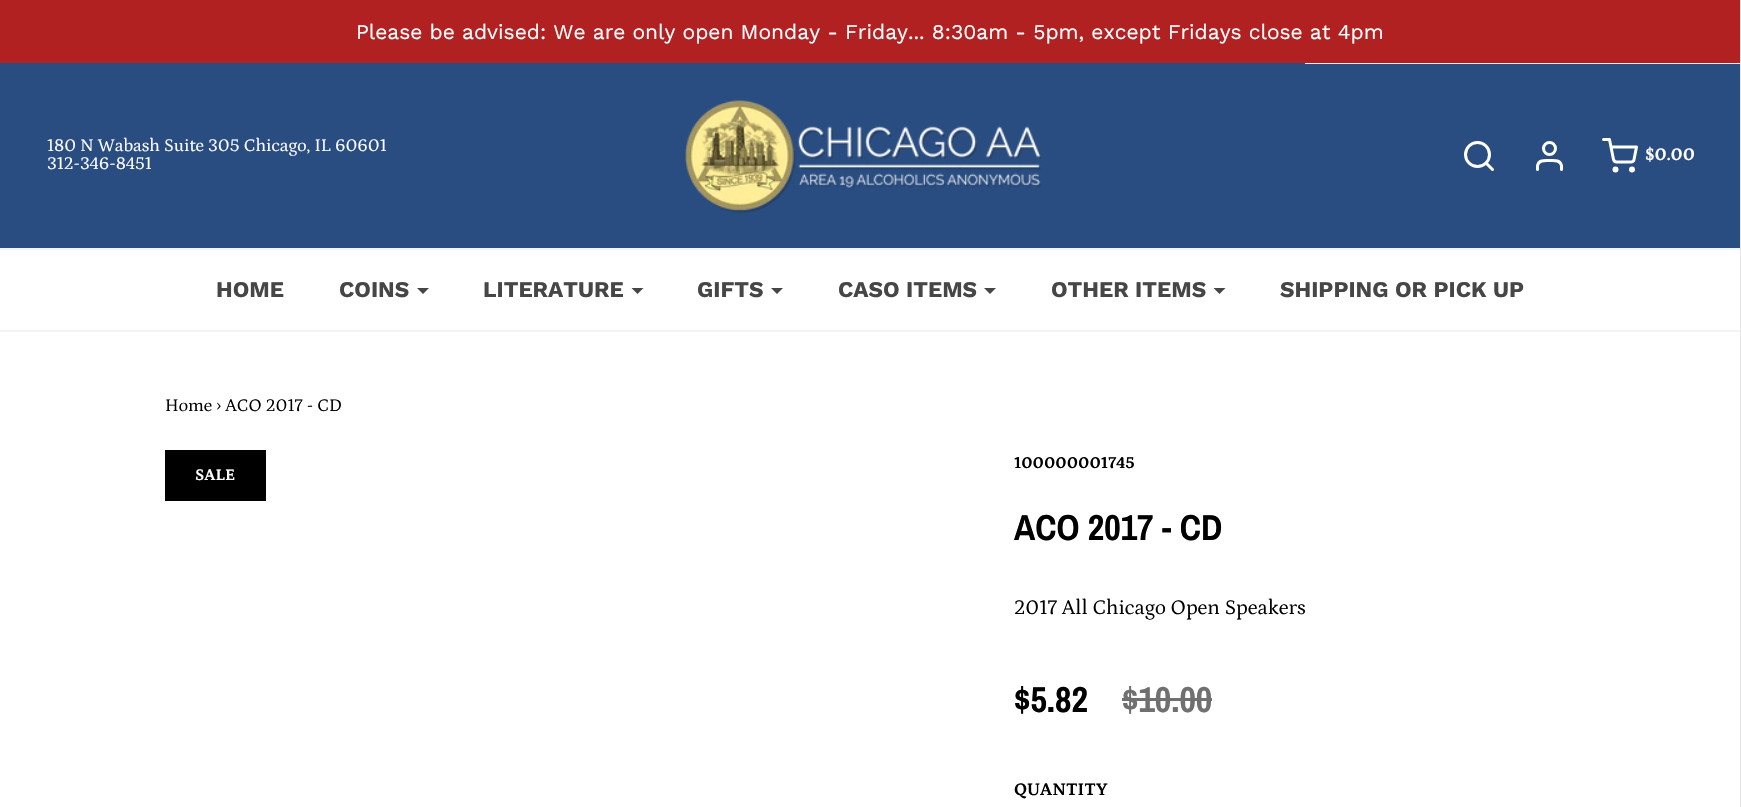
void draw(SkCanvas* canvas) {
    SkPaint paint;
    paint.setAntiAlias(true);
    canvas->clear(0xFFFFFFFF);
    paint.setColor(0xFFE6E6E6);
    canvas->drawRect(SkRect::MakeXYWH(1740, 0, 1, 807), paint);
    paint.setColor(0xFFB12121);
    canvas->drawRect(SkRect::MakeXYWH(0, 0, 1740, 63), paint);
    SkFont font1(fontMgr->matchFamilyStyle("Work Sans", SkFontStyle::Normal()), 21);
    font1.setSubpixel(true);
    paint.setColor(0xFFFFFFFF);
    canvas->drawString("Please be advised: We are only open Monday - Friday... 8:30am - 5pm, except Fridays close at 4pm", 356, 39, font1, paint);
    paint.setColor(0xFF2A4D81);
    canvas->drawRect(SkRect::MakeXYWH(0, 63, 1740, 185), paint);
    paint.setColor(0xFFEEEEEE);
    canvas->drawRect(SkRect::MakeXYWH(1305, 63, 435, 1), paint);
    SkFont font2(fontMgr->matchFamilyStyle("Petrona", SkFontStyle::Normal()), 18);
    font2.setSubpixel(true);
    paint.setColor(0xFFFFFFFF);
    canvas->drawString("180 N Wabash Suite 305 Chicago, IL 60601", 47, 151, font2, paint);
    canvas->drawString("312-346-8451", 47, 169, font2, paint);
    canvas->drawImageRect(SkImages::DeferredFromEncodedData(SkData::MakeFromFileName("img1.png")), SkRect::MakeXYWH(685, 100, 357, 113), SkSamplingOptions());
    paint.setStyle(SkPaint::kStroke_Style);
    paint.setStrokeWidth(3);
    canvas->drawCircle(1477.5f, 154.5f, 12, paint);
    paint.setStrokeCap(SkPaint::kRound_Cap);
    paint.setStrokeJoin(SkPaint::kRound_Join);
    canvas->drawPath(SkPathBuilder().moveTo(1492.5f, 169.5f).lineTo(1486, 163).detach(), paint);
    canvas->drawPath(SkPathBuilder().moveTo(1561.5f, 169.5f).lineTo(1561.5f, 165.5f).cubicTo(1560, 159.5f, 1554, 160.5f, 1549.5f, 160.5f).cubicTo(1545, 160.5f, 1539, 159.5f, 1537.5f, 165.5f).lineTo(1537.5f, 169.5f).detach(), paint);
    paint.setStrokeCap(SkPaint::kButt_Cap);
    paint.setStrokeJoin(SkPaint::kMiter_Join);
    canvas->drawCircle(1549.5f, 148.5f, 6, paint);
    canvas->drawCircle(1615.5f, 169.5f, 1.5f, paint);
    canvas->drawCircle(1632, 169.5f, 1.5f, paint);
    paint.setStrokeCap(SkPaint::kRound_Cap);
    paint.setStrokeJoin(SkPaint::kRound_Join);
    canvas->drawPath(SkPathBuilder().moveTo(1603.5f, 139.5f).lineTo(1609.5f, 139.5f).lineTo(1613.5f, 159.5f).cubicTo(1614, 161, 1615, 162, 1616.5f, 162).lineTo(1631, 162).cubicTo(1632.5f, 162, 1634, 161, 1634, 159.5f).lineTo(1636.5f, 147).lineTo(1611, 147).detach(), paint);
    SkFont font3(fontMgr->matchFamilyStyle("Petrona", SkFontStyle::Bold()), 18);
    font3.setSubpixel(true);
    paint.setStyle(SkPaint::kFill_Style);
    canvas->drawString("$0.00", 1645, 160, font3, paint);
    paint.setColor(0xFFF3F3F3);
    canvas->drawRect(SkRect::MakeXYWH(0, 248, 1740, 2), paint);
    canvas->drawRect(SkRect::MakeXYWH(0, 330, 1740, 2), paint);
    SkFont font4(fontMgr->matchFamilyStyle("Work Sans", SkFontStyle::Bold()), 22.5f);
    font4.setSubpixel(true);
    paint.setColor(0xFF464646);
    canvas->drawString("HOME", 216, 297, font4, paint);
    canvas->drawString("COINS", 339, 297, font4, paint);
    canvas->drawPath(SkPathBuilder().moveTo(417, 288).lineTo(429, 288).lineTo(423, 294).close().detach(), paint);
    canvas->drawString("LITERATURE", 483, 297, font4, paint);
    canvas->drawPath(SkPathBuilder().moveTo(631.5f, 288).lineTo(643.5f, 288).lineTo(637.5f, 294).close().detach(), paint);
    canvas->drawString("GIFTS", 697, 297, font4, paint);
    canvas->drawPath(SkPathBuilder().moveTo(771, 288).lineTo(783, 288).lineTo(777, 294).close().detach(), paint);
    canvas->drawString("CASO ITEMS", 838, 297, font4, paint);
    canvas->drawPath(SkPathBuilder().moveTo(984, 288).lineTo(996, 288).lineTo(990, 294).close().detach(), paint);
    canvas->drawString("OTHER ITEMS", 1051, 297, font4, paint);
    canvas->drawPath(SkPathBuilder().moveTo(1213.5f, 288).lineTo(1225.5f, 288).lineTo(1219.5f, 294).close().detach(), paint);
    canvas->drawString("SHIPPING OR PICK UP", 1280, 297, font4, paint);
    paint.setColor(0xFF000000);
    canvas->drawString("Home › ACO 2017 - CD", 165, 411, font2, paint);
    canvas->drawRect(SkRect::MakeXYWH(165, 450, 101, 51), paint);
    SkFont font5(fontMgr->matchFamilyStyle("Petrona", SkFontStyle::Bold()), 16.5f);
    font5.setSubpixel(true);
    paint.setColor(0xFFFFFFFF);
    canvas->drawString("SALE", 195, 480, font5, paint);
    SkFont font6(fontMgr->matchFamilyStyle("Petrona", SkFontStyle::Bold()), 16.75f);
    font6.setSubpixel(true);
    paint.setColor(0xFF000000);
    canvas->drawString("100000001745", 1014, 468, font6, paint);
    SkFont font7(fontMgr->matchFamilyStyle("Archivo Narrow", SkFontStyle::Bold()), 36);
    font7.setSubpixel(true);
    canvas->drawString("ACO 2017 - CD", 1014, 540, font7, paint);
    SkFont font8(fontMgr->matchFamilyStyle("Petrona", SkFontStyle::Normal()), 21);
    font8.setSubpixel(true);
    canvas->drawString("2017 All Chicago Open Speakers", 1014, 614, font8, paint);
    canvas->drawString("$5.82", 1014, 712, font7, paint);
    paint.setColor(0xFF707070);
    canvas->drawString("$10.00", 1122, 712, font7, paint);
    canvas->drawRect(SkRect::MakeXYWH(1122, 698, 90, 3), paint);
    paint.setColor(0xFF000000);
    canvas->drawString("QUANTITY", 1014, 795, font3, paint);
}
